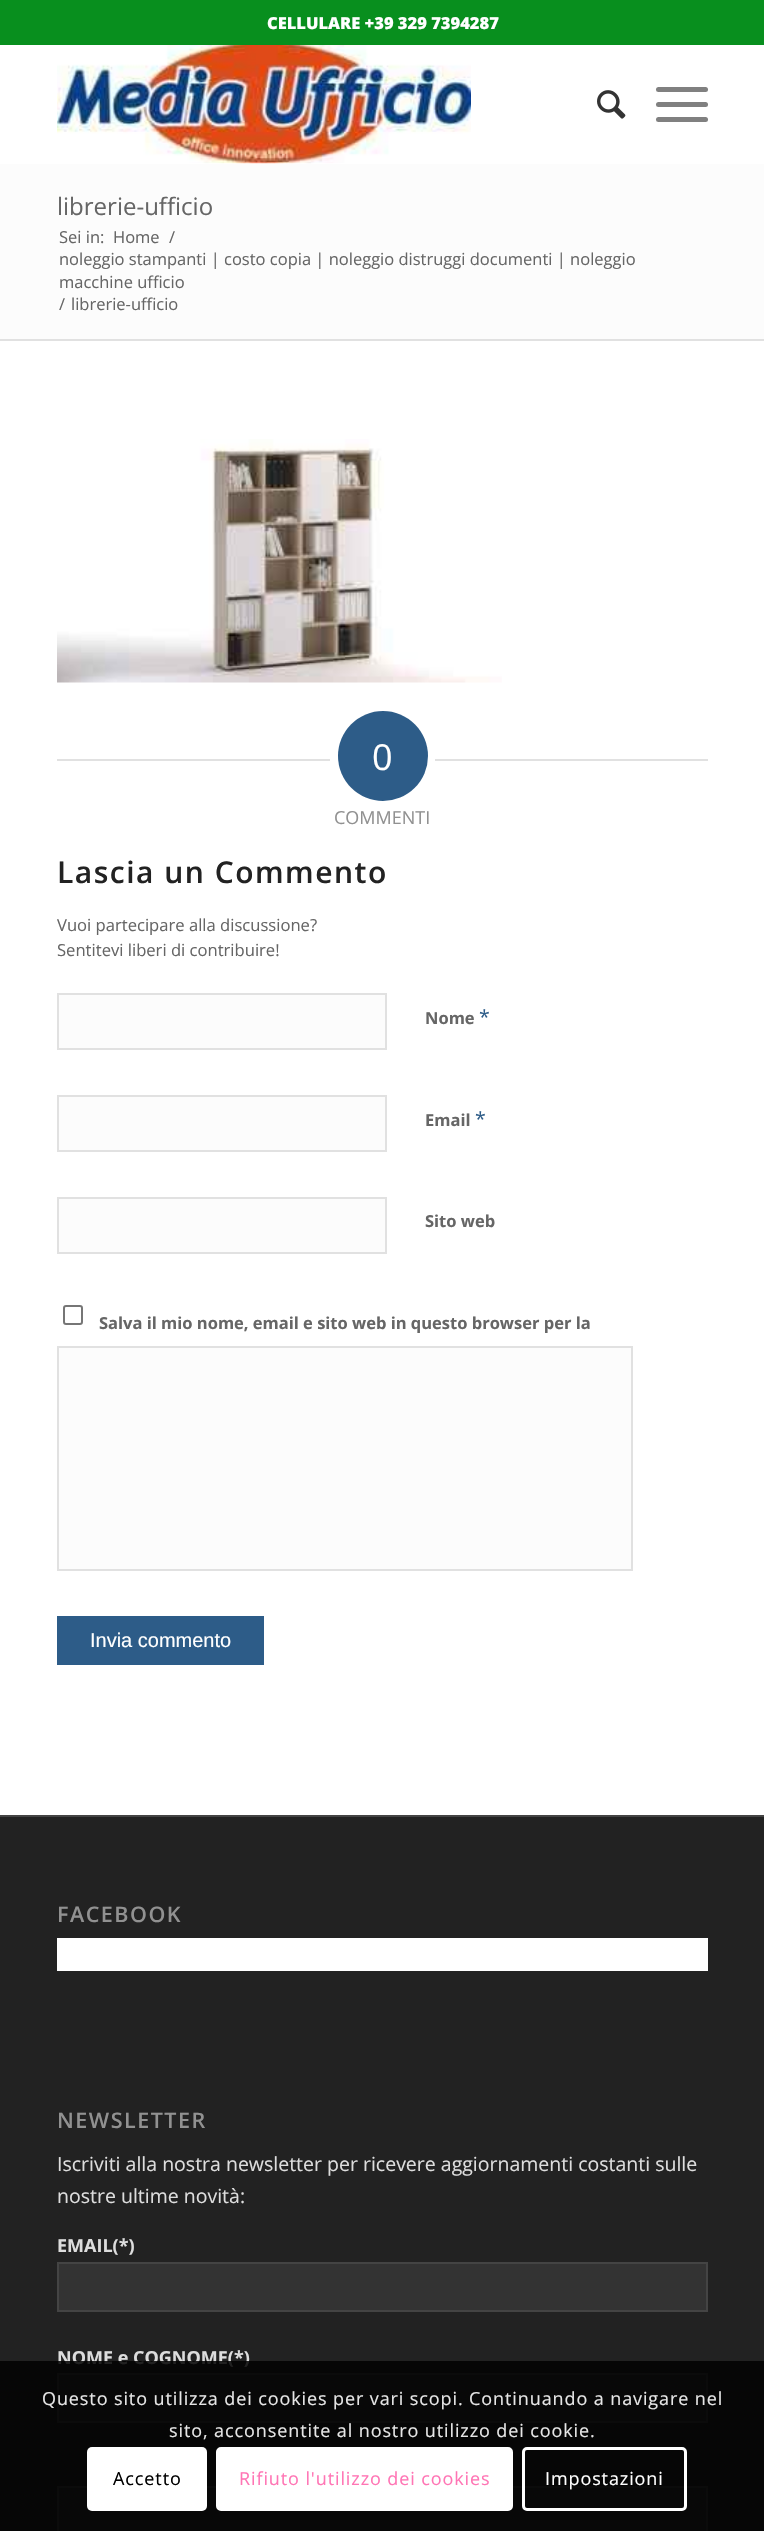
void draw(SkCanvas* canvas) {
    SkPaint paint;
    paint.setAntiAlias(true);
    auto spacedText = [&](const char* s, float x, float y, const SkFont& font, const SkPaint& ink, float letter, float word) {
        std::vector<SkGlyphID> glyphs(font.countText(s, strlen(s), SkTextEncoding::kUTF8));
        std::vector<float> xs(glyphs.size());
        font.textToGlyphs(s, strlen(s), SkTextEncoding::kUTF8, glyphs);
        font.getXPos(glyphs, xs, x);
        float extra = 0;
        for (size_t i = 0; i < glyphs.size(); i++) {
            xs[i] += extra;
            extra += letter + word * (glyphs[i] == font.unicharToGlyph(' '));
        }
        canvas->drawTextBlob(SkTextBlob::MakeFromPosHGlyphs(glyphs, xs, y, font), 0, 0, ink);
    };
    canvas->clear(0xFFFFFFFF);
    paint.setColor(0xFF088F1E);
    canvas->drawRect(SkRect::MakeXYWH(0, 0, 764, 45), paint);
    SkFont font1(fontMgr->matchFamilyStyle("Open Sans", SkFontStyle(800, SkFontStyle::kNormal_Width, SkFontStyle::kUpright_Slant)), 16.5f);
    font1.setSubpixel(true);
    paint.setColor(0xFFFFFFFF);
    canvas->drawString("CELLULARE +39 329 7394287", 267, 29, font1, paint);
    canvas->drawImageRect(SkImages::DeferredFromEncodedData(SkData::MakeFromFileName("img1.png")), SkRect::MakeXYWH(57, 45, 414, 119), SkSamplingOptions());
    canvas->drawImageRect(SkImages::DeferredFromEncodedData(SkData::MakeFromFileName("img2.png")), SkRect::MakeXYWH(597, 90, 29, 29), SkSamplingOptions());
    paint.setColor(0xFF808080);
    canvas->drawRoundRect(SkRect::MakeXYWH(656, 102, 52, 5), 2.5f, 2.5f, paint);
    canvas->drawRoundRect(SkRect::MakeXYWH(656, 87, 52, 5), 2.5f, 2.5f, paint);
    canvas->drawRoundRect(SkRect::MakeXYWH(656, 117, 52, 5), 2.5f, 2.5f, paint);
    paint.setColor(0xFFFCFCFC);
    canvas->drawRect(SkRect::MakeXYWH(0, 164, 764, 175), paint);
    SkFont font2(fontMgr->matchFamilyStyle("Open Sans", SkFontStyle::Normal()), 24);
    font2.setSubpixel(true);
    paint.setColor(0xFF666666);
    canvas->drawString("librerie-ufficio", 57, 215, font2, paint);
    SkFont font3(fontMgr->matchFamilyStyle("Open Sans", SkFontStyle::Normal()), 16.5f);
    font3.setSubpixel(true);
    canvas->drawString("Sei in:", 59, 243, font3, paint);
    canvas->drawString("Home", 113, 243, font3, paint);
    canvas->drawString("/", 169, 243, font3, paint);
    canvas->drawString("noleggio stampanti | costo copia | noleggio distruggi documenti | noleggio", 59, 265, font3, paint);
    canvas->drawString("macchine ufficio", 59, 288, font3, paint);
    canvas->drawString("/", 59, 310, font3, paint);
    canvas->drawString("librerie-ufficio", 71, 310, font3, paint);
    paint.setColor(0xFFE1E1E1);
    canvas->drawRect(SkRect::MakeXYWH(0, 339, 764, 2), paint);
    canvas->drawImageRect(SkImages::DeferredFromEncodedData(SkData::MakeFromFileName("img3.png")), SkRect::MakeXYWH(57, 439, 445, 244), SkSamplingOptions());
    canvas->drawRect(SkRect::MakeXYWH(57, 759, 273, 2), paint);
    paint.setColor(0xFF2D5C88);
    canvas->drawCircle(383, 756, 45, paint);
    SkFont font4(fontMgr->matchFamilyStyle("Open Sans", SkFontStyle::Normal()), 36);
    font4.setSubpixel(true);
    paint.setColor(0xFFFFFFFF);
    canvas->drawString("0", 372, 770, font4, paint);
    paint.setColor(0xFFE1E1E1);
    canvas->drawRect(SkRect::MakeXYWH(435, 759, 273, 2), paint);
    SkFont font5(fontMgr->matchFamilyStyle("Open Sans", SkFontStyle::Normal()), 18);
    font5.setSubpixel(true);
    paint.setColor(0xFF919191);
    canvas->drawString("COMMENTI", 334, 824, font5, paint);
    SkFont font6(fontMgr->matchFamilyStyle("Open Sans", SkFontStyle(600, SkFontStyle::kNormal_Width, SkFontStyle::kUpright_Slant)), 30);
    font6.setSubpixel(true);
    paint.setColor(0xFF222222);
    spacedText("Lascia un Commento", 57, 883, font6, paint, 1.5f, 0);
    SkFont font7(fontMgr->matchFamilyStyle("Open Sans", SkFontStyle::Normal()), 16.6f);
    font7.setSubpixel(true);
    paint.setColor(0xFF666666);
    canvas->drawString("Vuoi partecipare alla discussione?", 57, 931, font7, paint);
    canvas->drawString("Sentitevi liberi di contribuire!", 57, 956, font7, paint);
    paint.setColor(0xFFFCFCFC);
    canvas->drawRect(SkRect::MakeXYWH(58, 994, 328, 55), paint);
    paint.setStyle(SkPaint::kStroke_Style);
    paint.setStrokeWidth(2);
    paint.setColor(0xFFE1E1E1);
    canvas->drawRect(SkRect::MakeXYWH(58, 994, 328, 55), paint);
    SkFont font8(fontMgr->matchFamilyStyle("Open Sans", SkFontStyle::Bold()), 16.5f);
    font8.setSubpixel(true);
    paint.setStyle(SkPaint::kFill_Style);
    paint.setColor(0xFF666666);
    canvas->drawString("Nome", 425, 1024, font8, paint);
    SkFont font9(fontMgr->matchFamilyStyle("Open Sans", SkFontStyle::Normal()), 19.5f);
    font9.setSubpixel(true);
    paint.setColor(0xFF2D5C88);
    canvas->drawString("*", 479, 1024, font9, paint);
    paint.setColor(0xFFFCFCFC);
    canvas->drawRect(SkRect::MakeXYWH(58, 1096, 328, 55), paint);
    paint.setStyle(SkPaint::kStroke_Style);
    paint.setColor(0xFFE1E1E1);
    canvas->drawRect(SkRect::MakeXYWH(58, 1096, 328, 55), paint);
    paint.setStyle(SkPaint::kFill_Style);
    paint.setColor(0xFF666666);
    canvas->drawString("Email", 425, 1126, font8, paint);
    paint.setColor(0xFF2D5C88);
    canvas->drawString("*", 475, 1126, font9, paint);
    paint.setColor(0xFFFCFCFC);
    canvas->drawRect(SkRect::MakeXYWH(58, 1198, 328, 55), paint);
    paint.setStyle(SkPaint::kStroke_Style);
    paint.setColor(0xFFE1E1E1);
    canvas->drawRect(SkRect::MakeXYWH(58, 1198, 328, 55), paint);
    paint.setStyle(SkPaint::kFill_Style);
    paint.setColor(0xFF666666);
    canvas->drawString("Sito web", 425, 1227, font8, paint);
    paint.setStyle(SkPaint::kStroke_Style);
    paint.setColor(0xFF767676);
    canvas->drawRoundRect(SkRect::MakeXYWH(64, 1306, 18, 18), 2, 2, paint);
    paint.setStyle(SkPaint::kFill_Style);
    paint.setColor(0xFF666666);
    canvas->drawString("Salva il mio nome, email e sito web in questo browser per la", 99, 1329, font8, paint);
    paint.setColor(0xFFFCFCFC);
    canvas->drawRect(SkRect::MakeXYWH(58, 1347, 574, 223), paint);
    paint.setStyle(SkPaint::kStroke_Style);
    paint.setColor(0xFFE1E1E1);
    canvas->drawRect(SkRect::MakeXYWH(58, 1347, 574, 223), paint);
    paint.setStyle(SkPaint::kFill_Style);
    paint.setColor(0xFF2D5C88);
    canvas->drawRect(SkRect::MakeXYWH(57, 1616, 207, 49), paint);
    SkFont font10(fontMgr->matchFamilyStyle("Liberation Sans", SkFontStyle::Normal()), 20);
    font10.setSubpixel(true);
    paint.setColor(0xFFFFFFFF);
    canvas->drawString("Invia commento", 90, 1647, font10, paint);
    paint.setColor(0xFF222222);
    canvas->drawRect(SkRect::MakeXYWH(0, 1817, 764, 714), paint);
    paint.setColor(0xFF444444);
    canvas->drawRect(SkRect::MakeXYWH(0, 1815, 764, 2), paint);
    SkFont font11(fontMgr->matchFamilyStyle("Open Sans", SkFontStyle(600, SkFontStyle::kNormal_Width, SkFontStyle::kUpright_Slant)), 21.5f);
    font11.setSubpixel(true);
    paint.setColor(0xFF919191);
    spacedText("FACEBOOK", 57, 1922, font11, paint, 1.5f, 0);
    paint.setColor(0xFFFFFFFF);
    canvas->drawRect(SkRect::MakeXYWH(57, 1938, 651, 33), paint);
    paint.setColor(0xFF919191);
    spacedText("NEWSLETTER", 57, 2128, font11, paint, 1.5f, 0);
    paint.setColor(0xFFDDDDDD);
    canvas->drawString("Iscriviti alla nostra newsletter per ricevere aggiornamenti costanti sulle", 57, 2171, font9, paint);
    canvas->drawString("nostre ultime novità:", 57, 2203, font9, paint);
    SkFont font12(fontMgr->matchFamilyStyle("Open Sans", SkFontStyle::Bold()), 18);
    font12.setSubpixel(true);
    canvas->drawString("EMAIL(*)", 57, 2252, font12, paint);
    paint.setColor(0xFF333333);
    canvas->drawRect(SkRect::MakeXYWH(58, 2263, 649, 48), paint);
    paint.setStyle(SkPaint::kStroke_Style);
    paint.setColor(0xFF444444);
    canvas->drawRect(SkRect::MakeXYWH(58, 2263, 649, 48), paint);
    paint.setStyle(SkPaint::kFill_Style);
    paint.setColor(0xFFDDDDDD);
    canvas->drawString("NOME e COGNOME(*)", 57, 2364, font12, paint);
    paint.setColor(0xFF333333);
    canvas->drawRect(SkRect::MakeXYWH(58, 2374, 649, 48), paint);
    paint.setStyle(SkPaint::kStroke_Style);
    paint.setColor(0xFF444444);
    canvas->drawRect(SkRect::MakeXYWH(58, 2374, 649, 48), paint);
    paint.setStyle(SkPaint::kFill_Style);
    paint.setColor(0xFF333333);
    canvas->drawRect(SkRect::MakeXYWH(58, 2487, 649, 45), paint);
    paint.setStyle(SkPaint::kStroke_Style);
    paint.setColor(0xFF444444);
    canvas->drawRect(SkRect::MakeXYWH(58, 2487, 649, 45), paint);
    paint.setStyle(SkPaint::kFill_Style);
    paint.setColor(0xD9000000);
    canvas->drawRect(SkRect::MakeXYWH(0, 2361, 764, 170), paint);
    paint.setColor(0xFFE6E6E6);
    spacedText("Questo sito utilizza dei cookies per vari scopi. Continuando a navigare nel", 42, 2405, font5, paint, 0.9f, 0);
    spacedText("sito, acconsentite al nostro utilizzo dei cookie.", 169, 2437, font5, paint, 0.9f, 0);
    paint.setColor(0xFFFFFFFF);
    canvas->drawRoundRect(SkRect::MakeXYWH(87, 2447, 120, 64), 5, 5, paint);
    paint.setColor(0xFF000000);
    spacedText("Accetto", 113, 2485, font5, paint, 0.9f, 0);
    paint.setColor(0xFFFFFFFF);
    canvas->drawRoundRect(SkRect::MakeXYWH(217.5f, 2448.5f, 294, 61), 3.5f, 3.5f, paint);
    paint.setStyle(SkPaint::kStroke_Style);
    paint.setStrokeWidth(3);
    canvas->drawRoundRect(SkRect::MakeXYWH(217.5f, 2448.5f, 294, 61), 3.5f, 3.5f, paint);
    paint.setStyle(SkPaint::kFill_Style);
    paint.setColor(0xFFFF75B5);
    spacedText("Rifiuto l'utilizzo dei cookies", 239, 2485, font5, paint, 0.9f, 0);
    paint.setStyle(SkPaint::kStroke_Style);
    paint.setColor(0xFFFFFFFF);
    canvas->drawRoundRect(SkRect::MakeXYWH(523.5f, 2448.5f, 162, 61), 3.5f, 3.5f, paint);
    paint.setStyle(SkPaint::kFill_Style);
    spacedText("Impostazioni", 545, 2485, font5, paint, 0.9f, 0);
}
